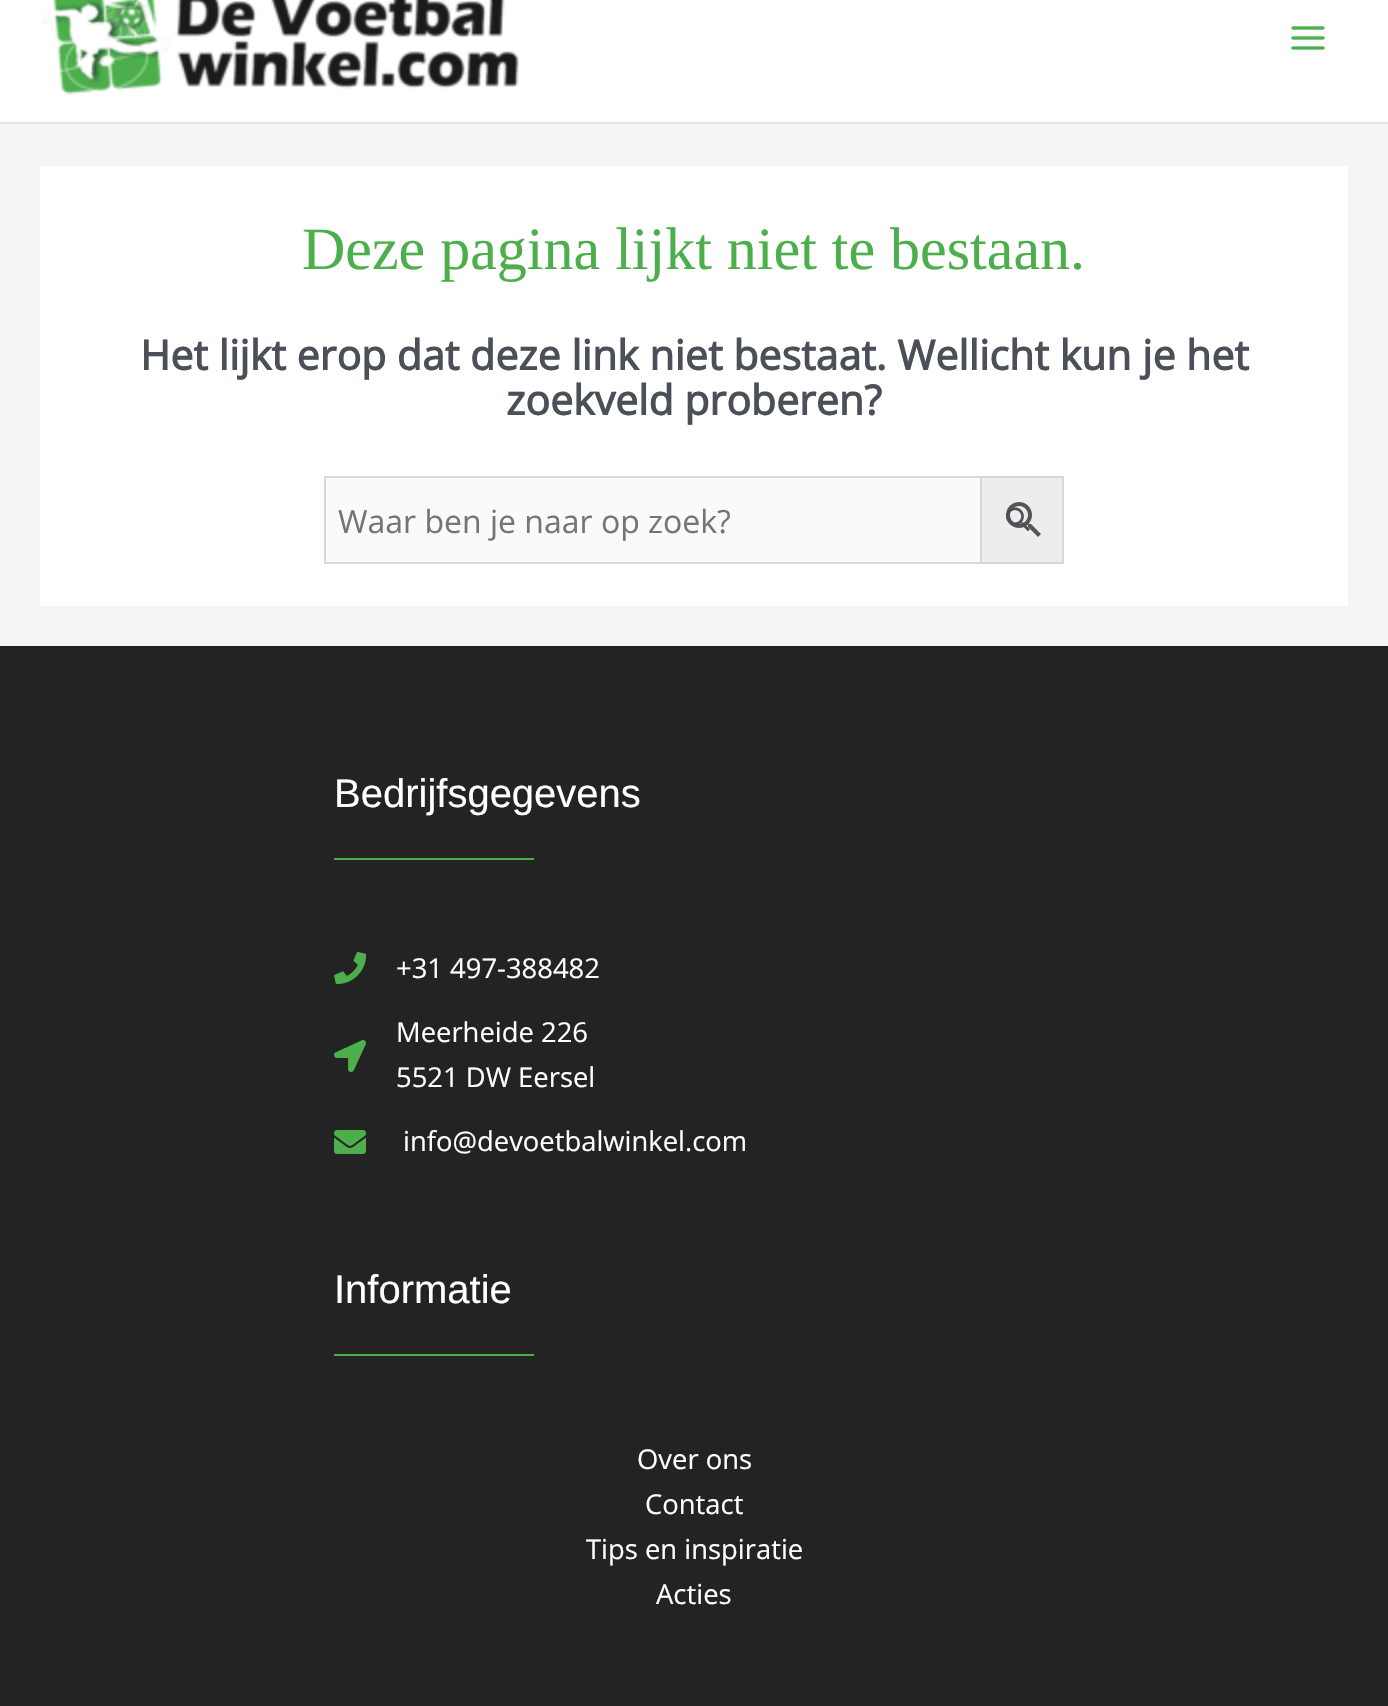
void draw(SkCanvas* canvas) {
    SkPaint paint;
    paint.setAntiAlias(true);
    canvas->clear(0xFFF5F5F5);
    paint.setColor(0xFFFFFFFF);
    canvas->drawRect(SkRect::MakeXYWH(0, 0, 1388, 122), paint);
    paint.setColor(0xFFE5E5E5);
    canvas->drawRect(SkRect::MakeXYWH(0, 122, 1388, 2), paint);
    canvas->drawImageRect(SkImages::DeferredFromEncodedData(SkData::MakeFromFileName("img1.png")), SkRect::MakeXYWH(42, 0, 477, 95), SkSamplingOptions());
    canvas->drawImageRect(SkImages::DeferredFromEncodedData(SkData::MakeFromFileName("img2.png")), SkRect::MakeXYWH(1291, 26, 34, 24), SkSamplingOptions());
    paint.setColor(0xFFFFFFFF);
    canvas->drawRect(SkRect::MakeXYWH(40, 166, 1308, 440), paint);
    SkFont font1(fontMgr->matchFamilyStyle("Liberation Serif", SkFontStyle::Normal()), 60);
    font1.setSubpixel(true);
    paint.setColor(0xFF4CAF4C);
    canvas->drawString("Deze pagina lijkt niet te bestaan.", 302, 269, font1, paint);
    SkFont font2(fontMgr->matchFamilyStyle("Open Sans", SkFontStyle::Bold()), 41.05f);
    font2.setSubpixel(true);
    paint.setColor(0xFF4B4F58);
    canvas->drawString("Het lijkt erop dat deze link niet bestaat. Wellicht kun je het", 140, 370, font2, paint);
    canvas->drawString("zoekveld proberen?", 506, 415, font2, paint);
    paint.setColor(0xFFEDEDED);
    canvas->drawRect(SkRect::MakeXYWH(981, 477, 82, 86), paint);
    paint.setStyle(SkPaint::kStroke_Style);
    paint.setStrokeWidth(2);
    paint.setColor(0xFFD8D8D8);
    canvas->drawRect(SkRect::MakeXYWH(981, 477, 82, 86), paint);
    paint.setStyle(SkPaint::kFill_Style);
    paint.setColor(0xFFFAFAFA);
    canvas->drawRect(SkRect::MakeXYWH(325, 477, 656, 86), paint);
    paint.setStyle(SkPaint::kStroke_Style);
    paint.setColor(0xFFD8D8D8);
    canvas->drawRect(SkRect::MakeXYWH(325, 477, 656, 86), paint);
    SkFont font3(fontMgr->matchFamilyStyle("Open Sans", SkFontStyle::Normal()), 32);
    font3.setSubpixel(true);
    paint.setStyle(SkPaint::kFill_Style);
    paint.setColor(0xFF757575);
    canvas->drawString("Waar ben je naar op zoek?", 338, 533, font3, paint);
    canvas->drawImageRect(SkImages::DeferredFromEncodedData(SkData::MakeFromFileName("img3.png")), SkRect::MakeXYWH(1006, 502, 35, 35), SkSamplingOptions());
    canvas->drawImageRect(SkImages::DeferredFromEncodedData(SkData::MakeFromFileName("img4.png")), SkRect::MakeXYWH(1006, 507, 24, 25), SkSamplingOptions());
    paint.setColor(0xFF232323);
    canvas->drawRect(SkRect::MakeXYWH(0, 646, 1388, 1060), paint);
    SkFont font4(fontMgr->matchFamilyStyle("Liberation Sans", SkFontStyle::Normal()), 40);
    font4.setSubpixel(true);
    paint.setColor(0xFFFFFFFF);
    canvas->drawString("Bedrijfsgegevens", 334, 807, font4, paint);
    paint.setColor(0xFF4CAF4C);
    canvas->drawRect(SkRect::MakeXYWH(334, 858, 200, 2), paint);
    canvas->drawImageRect(SkImages::DeferredFromEncodedData(SkData::MakeFromFileName("img5.png")), SkRect::MakeXYWH(334, 952, 33, 32), SkSamplingOptions());
    SkFont font5(fontMgr->matchFamilyStyle("Open Sans", SkFontStyle::Normal()), 27.4f);
    font5.setSubpixel(true);
    paint.setColor(0xFFFFFFFF);
    canvas->drawString("+31 497-388482", 396, 978, font5, paint);
    canvas->drawImageRect(SkImages::DeferredFromEncodedData(SkData::MakeFromFileName("img6.png")), SkRect::MakeXYWH(334, 1040, 32, 32), SkSamplingOptions());
    canvas->drawString("Meerheide 226", 396, 1042, font5, paint);
    canvas->drawString("5521 DW Eersel", 396, 1087, font5, paint);
    canvas->drawImageRect(SkImages::DeferredFromEncodedData(SkData::MakeFromFileName("img7.png")), SkRect::MakeXYWH(334, 1130, 32, 24), SkSamplingOptions());
    canvas->drawString("info@devoetbalwinkel.com", 403, 1151, font5, paint);
    canvas->drawString("Informatie", 334, 1303, font4, paint);
    paint.setColor(0xFF4CAF4C);
    canvas->drawRect(SkRect::MakeXYWH(334, 1354, 200, 2), paint);
    paint.setColor(0xFFFFFFFF);
    canvas->drawString("Over ons", 637, 1469, font5, paint);
    canvas->drawString("Contact", 645, 1514, font5, paint);
    canvas->drawString("Tips en inspiratie", 586, 1559, font5, paint);
    canvas->drawString("Acties", 656, 1604, font5, paint);
}
